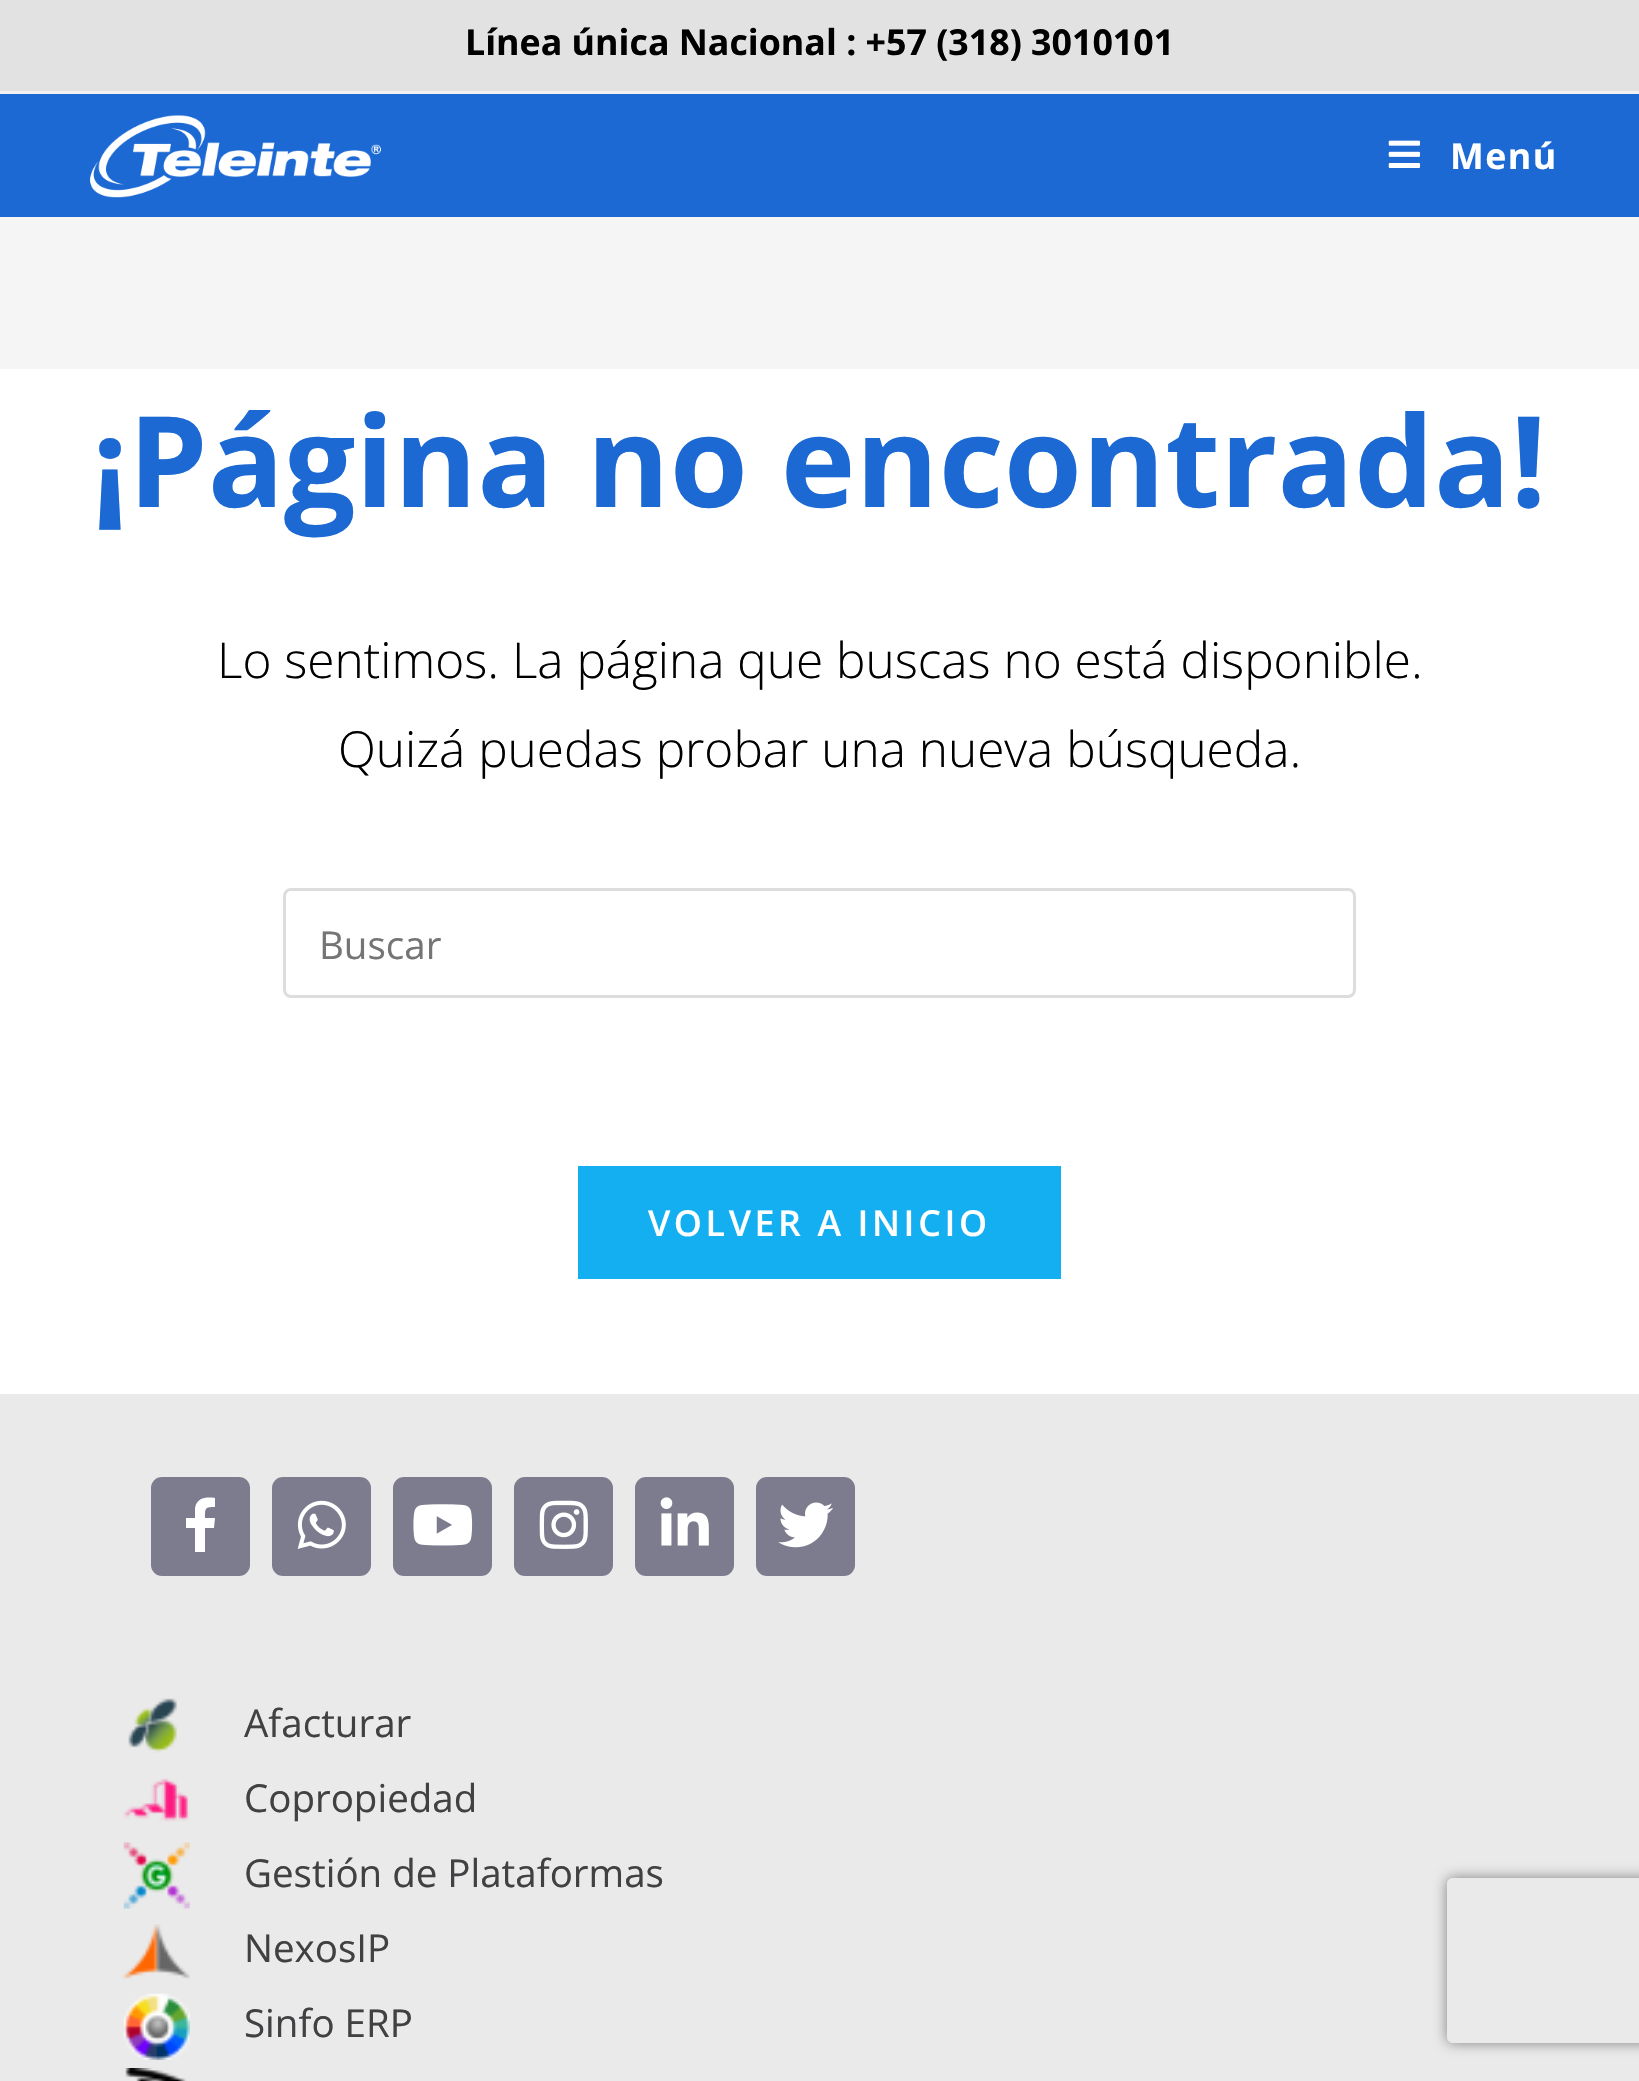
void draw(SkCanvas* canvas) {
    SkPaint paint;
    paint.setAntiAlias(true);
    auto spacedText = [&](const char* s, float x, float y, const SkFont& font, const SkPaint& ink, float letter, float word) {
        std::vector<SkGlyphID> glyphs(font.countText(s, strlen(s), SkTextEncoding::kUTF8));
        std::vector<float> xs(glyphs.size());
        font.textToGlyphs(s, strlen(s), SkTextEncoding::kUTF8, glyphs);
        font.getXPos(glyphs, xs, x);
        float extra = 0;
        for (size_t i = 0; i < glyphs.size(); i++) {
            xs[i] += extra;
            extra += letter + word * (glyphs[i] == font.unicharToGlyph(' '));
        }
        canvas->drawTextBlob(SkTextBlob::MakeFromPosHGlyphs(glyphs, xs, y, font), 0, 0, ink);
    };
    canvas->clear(0xFFFFFFFF);
    paint.setColor(0xFFE2E2E2);
    canvas->drawRect(SkRect::MakeXYWH(0, 0, 1639, 91), paint);
    paint.setColor(0xFFF1F1F1);
    canvas->drawRect(SkRect::MakeXYWH(0, 91, 1639, 3), paint);
    SkFont font1(fontMgr->matchFamilyStyle("Open Sans", SkFontStyle::Bold()), 35.75f);
    font1.setSubpixel(true);
    paint.setColor(0xFF000000);
    canvas->drawString("Línea única Nacional : +57 (318) 3010101", 465, 55, font1, paint);
    paint.setColor(0xFF1C69D4);
    canvas->drawRect(SkRect::MakeXYWH(0, 94, 1639, 123), paint);
    canvas->drawImageRect(SkImages::DeferredFromEncodedData(SkData::MakeFromFileName("img1.png")), SkRect::MakeXYWH(90, 115, 291, 83), SkSamplingOptions());
    canvas->drawImageRect(SkImages::DeferredFromEncodedData(SkData::MakeFromFileName("img2.png")), SkRect::MakeXYWH(1388, 140, 33, 28), SkSamplingOptions());
    paint.setColor(0xFFFFFFFF);
    spacedText("Menú", 1450, 169, font1, paint, 1.5f, 0);
    paint.setColor(0xFFF5F5F5);
    canvas->drawRect(SkRect::MakeXYWH(0, 217, 1639, 152), paint);
    SkFont font2(fontMgr->matchFamilyStyle("Open Sans", SkFontStyle::Bold()), 126.5f);
    font2.setSubpixel(true);
    paint.setColor(0xFF1C69D4);
    canvas->drawString("¡Página no encontrada!", 92, 507, font2, paint);
    SkFont font3(fontMgr->matchFamilyStyle("Open Sans", SkFontStyle(300, SkFontStyle::kNormal_Width, SkFontStyle::kUpright_Slant)), 49.5f);
    font3.setSubpixel(true);
    paint.setColor(0xFF000000);
    canvas->drawString("Lo sentimos. La página que buscas no está disponible.", 217, 678, font3, paint);
    canvas->drawString("Quizá puedas probar una nueva búsqueda.", 338, 767, font3, paint);
    paint.setStyle(SkPaint::kStroke_Style);
    paint.setStrokeWidth(3);
    paint.setColor(0xFFDDDDDD);
    canvas->drawRoundRect(SkRect::MakeXYWH(284.5f, 889.5f, 1070, 107), 6.5f, 6.5f, paint);
    SkFont font4(fontMgr->matchFamilyStyle("Open Sans", SkFontStyle::Normal()), 38.5f);
    font4.setSubpixel(true);
    paint.setStyle(SkPaint::kFill_Style);
    paint.setColor(0xFF757575);
    canvas->drawString("Buscar", 319, 959, font4, paint);
    paint.setColor(0xFF13AFF0);
    canvas->drawRect(SkRect::MakeXYWH(578, 1166, 483, 113), paint);
    SkFont font5(fontMgr->matchFamilyStyle("Open Sans", SkFontStyle(600, SkFontStyle::kNormal_Width, SkFontStyle::kUpright_Slant)), 35.75f);
    font5.setSubpixel(true);
    paint.setColor(0xFFFFFFFF);
    spacedText("VOLVER A INICIO", 648, 1236, font5, paint, 3.6f, 0);
    paint.setColor(0xFFEAEAEA);
    canvas->drawRect(SkRect::MakeXYWH(0, 1394, 1639, 687), paint);
    paint.setColor(0xFF7C7C8E);
    canvas->drawRoundRect(SkRect::MakeXYWH(151, 1477, 99, 99), 11, 11, paint);
    paint.setColor(0xFFFFFFFF);
    canvas->drawPath(SkPathBuilder().moveTo(214, 1528).lineTo(205, 1528).lineTo(205, 1552).lineTo(195, 1552).lineTo(195, 1528).lineTo(186, 1528).lineTo(186, 1518).lineTo(195, 1518).lineTo(195, 1508).cubicTo(197, 1497, 207, 1497, 215, 1498).lineTo(215, 1507).cubicTo(205, 1507, 205, 1508, 205, 1518).lineTo(215, 1518).close().detach(), paint);
    paint.setColor(0xFF7C7C8E);
    canvas->drawRoundRect(SkRect::MakeXYWH(272, 1477, 99, 99), 11, 11, paint);
    canvas->drawImageRect(SkImages::DeferredFromEncodedData(SkData::MakeFromFileName("img3.png")), SkRect::MakeXYWH(297, 1500, 49, 49), SkSamplingOptions());
    canvas->drawRoundRect(SkRect::MakeXYWH(393, 1477, 99, 99), 11, 11, paint);
    canvas->drawImageRect(SkImages::DeferredFromEncodedData(SkData::MakeFromFileName("img4.png")), SkRect::MakeXYWH(413, 1504, 60, 42), SkSamplingOptions());
    canvas->drawRoundRect(SkRect::MakeXYWH(514, 1477, 99, 99), 11, 11, paint);
    canvas->drawImageRect(SkImages::DeferredFromEncodedData(SkData::MakeFromFileName("img5.png")), SkRect::MakeXYWH(539, 1500, 49, 49), SkSamplingOptions());
    canvas->drawRoundRect(SkRect::MakeXYWH(635, 1477, 99, 99), 11, 11, paint);
    canvas->drawImageRect(SkImages::DeferredFromEncodedData(SkData::MakeFromFileName("img6.png")), SkRect::MakeXYWH(660, 1497, 49, 49), SkSamplingOptions());
    canvas->drawRoundRect(SkRect::MakeXYWH(756, 1477, 99, 99), 11, 11, paint);
    canvas->drawImageRect(SkImages::DeferredFromEncodedData(SkData::MakeFromFileName("img7.png")), SkRect::MakeXYWH(778, 1502, 55, 46), SkSamplingOptions());
    canvas->drawImageRect(SkImages::DeferredFromEncodedData(SkData::MakeFromFileName("img8.png")), SkRect::MakeXYWH(128, 1698, 49, 55), SkSamplingOptions());
    paint.setColor(0xFF414042);
    canvas->drawString("Afacturar", 244, 1737, font4, paint);
    canvas->drawImageRect(SkImages::DeferredFromEncodedData(SkData::MakeFromFileName("img9.png")), SkRect::MakeXYWH(123, 1778, 67, 44), SkSamplingOptions());
    canvas->drawString("Copropiedad", 244, 1812, font4, paint);
    canvas->drawImageRect(SkImages::DeferredFromEncodedData(SkData::MakeFromFileName("img10.png")), SkRect::MakeXYWH(123, 1842, 67, 67), SkSamplingOptions());
    canvas->drawString("Gestión de Plataformas", 244, 1887, font4, paint);
    canvas->drawImageRect(SkImages::DeferredFromEncodedData(SkData::MakeFromFileName("img11.png")), SkRect::MakeXYWH(123, 1924, 67, 56), SkSamplingOptions());
    canvas->drawString("NexosIP", 244, 1962, font4, paint);
    canvas->drawImageRect(SkImages::DeferredFromEncodedData(SkData::MakeFromFileName("img12.png")), SkRect::MakeXYWH(123, 1993, 67, 67), SkSamplingOptions());
    canvas->drawString("Sinfo ERP", 244, 2037, font4, paint);
    canvas->drawImageRect(SkImages::DeferredFromEncodedData(SkData::MakeFromFileName("img13.png")), SkRect::MakeXYWH(125, 2068, 62, 13), SkSamplingOptions());
    canvas->save();
    canvas->clipPath(SkPathBuilder(SkPathFillType::kEvenOdd).moveTo(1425, 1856).lineTo(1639, 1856).lineTo(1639, 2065).lineTo(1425, 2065).close().moveTo(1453, 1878).lineTo(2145, 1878).cubicTo(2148.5f, 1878, 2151, 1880.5f, 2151, 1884).lineTo(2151, 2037).cubicTo(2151, 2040.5f, 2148.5f, 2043, 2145, 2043).lineTo(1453, 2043).cubicTo(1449.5f, 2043, 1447, 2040.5f, 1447, 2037).lineTo(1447, 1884).cubicTo(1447, 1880.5f, 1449.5f, 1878, 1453, 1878).close().detach(), true);
    paint.setColor(0xFF808080);
    paint.setMaskFilter(SkMaskFilter::MakeBlur(kNormal_SkBlurStyle, 7));
    canvas->drawRoundRect(SkRect::MakeXYWH(1447, 1878, 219, 165), 6, 6, paint);
    paint.setMaskFilter(nullptr);
    canvas->restore();
}
